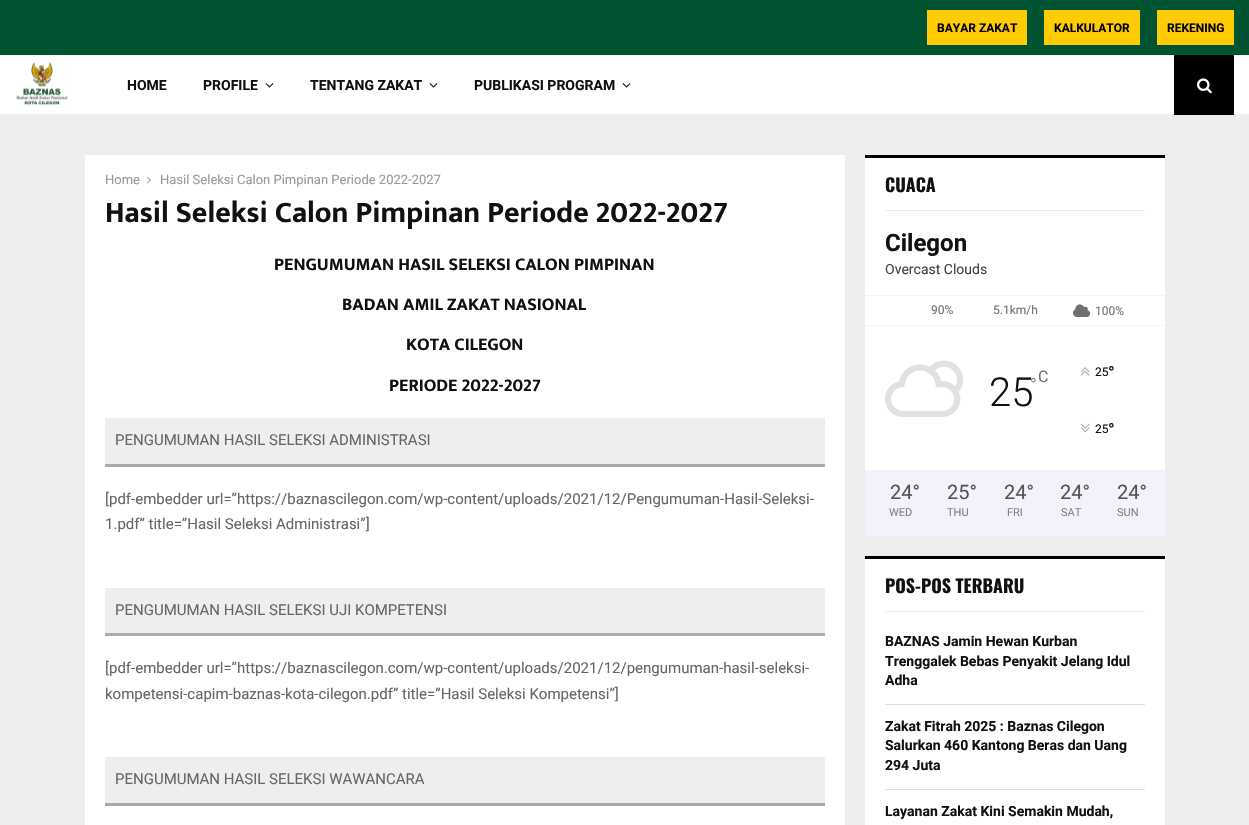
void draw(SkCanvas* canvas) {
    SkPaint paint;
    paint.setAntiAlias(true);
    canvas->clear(0xFFEEEEEE);
    paint.setColor(0xFF005331);
    canvas->drawRect(SkRect::MakeXYWH(0, 0, 1249, 55), paint);
    paint.setColor(0xFFFFCB05);
    canvas->drawRect(SkRect::MakeXYWH(927, 10, 100, 35), paint);
    SkFont font1(fontMgr->matchFamilyStyle("Roboto", SkFontStyle::Bold()), 12);
    font1.setSubpixel(true);
    paint.setColor(0xFF000000);
    canvas->drawString("BAYAR ZAKAT", 937, 32, font1, paint);
    paint.setColor(0xFFFFCB05);
    canvas->drawRect(SkRect::MakeXYWH(1044, 10, 96, 35), paint);
    paint.setColor(0xFF000000);
    canvas->drawString("KALKULATOR", 1054, 32, font1, paint);
    paint.setColor(0xFFFFCB05);
    canvas->drawRect(SkRect::MakeXYWH(1157, 10, 77, 35), paint);
    paint.setColor(0xFF000000);
    canvas->drawString("REKENING", 1167, 32, font1, paint);
    paint.setColor(0xFFFFFFFF);
    canvas->drawRect(SkRect::MakeXYWH(0, 55, 1249, 59), paint);
    canvas->drawImageRect(SkImages::DeferredFromEncodedData(SkData::MakeFromFileName("img1.png")), SkRect::MakeXYWH(16, 62, 52, 43), SkSamplingOptions());
    SkFont font2(fontMgr->matchFamilyStyle("Roboto", SkFontStyle::Bold()), 14);
    font2.setSubpixel(true);
    paint.setColor(0xFF111111);
    canvas->drawString("HOME", 127, 90, font2, paint);
    canvas->drawString("PROFILE", 203, 90, font2, paint);
    canvas->drawImageRect(SkImages::DeferredFromEncodedData(SkData::MakeFromFileName("img2.png")), SkRect::MakeXYWH(265, 83, 9, 5), SkSamplingOptions());
    canvas->drawString("TENTANG ZAKAT", 310, 90, font2, paint);
    canvas->drawImageRect(SkImages::DeferredFromEncodedData(SkData::MakeFromFileName("img2.png")), SkRect::MakeXYWH(429, 83, 9, 5), SkSamplingOptions());
    canvas->drawString("PUBLIKASI PROGRAM", 474, 90, font2, paint);
    canvas->drawImageRect(SkImages::DeferredFromEncodedData(SkData::MakeFromFileName("img2.png")), SkRect::MakeXYWH(622, 83, 9, 5), SkSamplingOptions());
    paint.setColor(0xFF000000);
    canvas->drawRect(SkRect::MakeXYWH(1174, 55, 60, 60), paint);
    canvas->drawImageRect(SkImages::DeferredFromEncodedData(SkData::MakeFromFileName("img3.png")), SkRect::MakeXYWH(1197, 78, 15, 16), SkSamplingOptions());
    paint.setColor(0xFFFFFFFF);
    canvas->drawRect(SkRect::MakeXYWH(85, 155, 760, 670), paint);
    SkFont font3(fontMgr->matchFamilyStyle("Roboto", SkFontStyle::Normal()), 13);
    font3.setSubpixel(true);
    paint.setColor(0xFF999999);
    canvas->drawString("Home", 105, 184, font3, paint);
    canvas->drawImageRect(SkImages::DeferredFromEncodedData(SkData::MakeFromFileName("img4.png")), SkRect::MakeXYWH(147, 176, 4, 8), SkSamplingOptions());
    canvas->drawString("Hasil Seleksi Calon Pimpinan Periode 2022-2027", 160, 184, font3, paint);
    SkFont font4(fontMgr->matchFamilyStyle("Mukta Vaani", SkFontStyle::Bold()), 30);
    font4.setSubpixel(true);
    paint.setColor(0xFF111111);
    canvas->drawString("Hasil Seleksi Calon Pimpinan Periode 2022-2027", 105, 222, font4, paint);
    SkFont font5(fontMgr->matchFamilyStyle("Mukta Vaani", SkFontStyle::Bold()), 18);
    font5.setSubpixel(true);
    canvas->drawString("PENGUMUMAN HASIL SELEKSI CALON PIMPINAN", 274, 270, font5, paint);
    canvas->drawString("BADAN AMIL ZAKAT NASIONAL", 342, 310, font5, paint);
    canvas->drawString("KOTA CILEGON", 406, 350, font5, paint);
    canvas->drawString("PERIODE 2022-2027", 389, 391, font5, paint);
    paint.setColor(0xFFEEEEEE);
    canvas->drawRect(SkRect::MakeXYWH(105, 418, 720, 46), paint);
    paint.setColor(0xFFAAAAAA);
    canvas->drawRect(SkRect::MakeXYWH(105, 464, 720, 3), paint);
    SkFont font6(fontMgr->matchFamilyStyle("Roboto", SkFontStyle::Normal()), 15);
    font6.setSubpixel(true);
    paint.setColor(0xFF666666);
    canvas->drawString("PENGUMUMAN HASIL SELEKSI ADMINISTRASI", 115, 445, font6, paint);
    canvas->drawString("[pdf-embedder url=”https://baznascilegon.com/wp-content/uploads/2021/12/Pengumuman-Hasil-Seleksi-", 105, 504, font6, paint);
    canvas->drawString("1.pdf” title=”Hasil Seleksi Administrasi”]", 105, 529, font6, paint);
    paint.setColor(0xFFEEEEEE);
    canvas->drawRect(SkRect::MakeXYWH(105, 588, 720, 45), paint);
    paint.setColor(0xFFAAAAAA);
    canvas->drawRect(SkRect::MakeXYWH(105, 633, 720, 3), paint);
    paint.setColor(0xFF666666);
    canvas->drawString("PENGUMUMAN HASIL SELEKSI UJI KOMPETENSI", 115, 615, font6, paint);
    canvas->drawString("[pdf-embedder url=”https://baznascilegon.com/wp-content/uploads/2021/12/pengumuman-hasil-seleksi-", 105, 673, font6, paint);
    canvas->drawString("kompetensi-capim-baznas-kota-cilegon.pdf” title=”Hasil Seleksi Kompetensi”]", 105, 699, font6, paint);
    paint.setColor(0xFFEEEEEE);
    canvas->drawRect(SkRect::MakeXYWH(105, 757, 720, 46), paint);
    paint.setColor(0xFFAAAAAA);
    canvas->drawRect(SkRect::MakeXYWH(105, 803, 720, 3), paint);
    paint.setColor(0xFF666666);
    canvas->drawString("PENGUMUMAN HASIL SELEKSI WAWANCARA", 115, 784, font6, paint);
    paint.setColor(0xFFFFFFFF);
    canvas->drawRect(SkRect::MakeXYWH(865, 158, 300, 312), paint);
    paint.setColor(0xFFECECEC);
    canvas->drawRect(SkRect::MakeXYWH(885, 210, 260, 1), paint);
    paint.setColor(0xFF000000);
    canvas->drawRect(SkRect::MakeXYWH(865, 155, 300, 3), paint);
    SkFont font7(fontMgr->matchFamilyStyle("Oswald", SkFontStyle::Bold()), 18);
    font7.setSubpixel(true);
    paint.setColor(0xFF111111);
    canvas->drawString("CUACA", 885, 192, font7, paint);
    SkFont font8(fontMgr->matchFamilyStyle("Roboto", SkFontStyle::Bold()), 24);
    font8.setSubpixel(true);
    canvas->drawString("Cilegon", 885, 251, font8, paint);
    SkFont font9(fontMgr->matchFamilyStyle("Roboto", SkFontStyle::Normal()), 14);
    font9.setSubpixel(true);
    paint.setColor(0xFF414141);
    canvas->drawString("Overcast Clouds", 885, 274, font9, paint);
    paint.setColor(0xFFF4F4F4);
    canvas->drawRect(SkRect::MakeXYWH(865, 295, 300, 1), paint);
    canvas->drawRect(SkRect::MakeXYWH(865, 325, 300, 1), paint);
    SkFont font10(fontMgr->matchFamilyStyle("Roboto", SkFontStyle::Normal()), 12);
    font10.setSubpixel(true);
    paint.setColor(0xFF707070);
    canvas->drawString("90%", 931, 314, font10, paint);
    canvas->drawString("5.1km/h", 993, 314, font10, paint);
    canvas->drawImageRect(SkImages::DeferredFromEncodedData(SkData::MakeFromFileName("img5.png")), SkRect::MakeXYWH(1073, 304, 18, 13), SkSamplingOptions());
    canvas->drawString("100%", 1095, 315, font10, paint);
    canvas->drawImageRect(SkImages::DeferredFromEncodedData(SkData::MakeFromFileName("img6.png")), SkRect::MakeXYWH(885, 360, 78, 57), SkSamplingOptions());
    SkFont font11(fontMgr->matchFamilyStyle("Roboto", SkFontStyle(300, SkFontStyle::kNormal_Width, SkFontStyle::kUpright_Slant)), 40);
    font11.setSubpixel(true);
    paint.setColor(0xFF111111);
    canvas->drawString("25", 989, 406, font11, paint);
    SkFont font12(fontMgr->matchFamilyStyle("Roboto", SkFontStyle(300, SkFontStyle::kNormal_Width, SkFontStyle::kUpright_Slant)), 18);
    font12.setSubpixel(true);
    paint.setColor(0xFF707070);
    canvas->drawString("°", 1030, 391, font12, paint);
    SkFont font13(fontMgr->matchFamilyStyle("Roboto", SkFontStyle::Normal()), 16);
    font13.setSubpixel(true);
    canvas->drawString("C", 1038, 382, font13, paint);
    canvas->drawImageRect(SkImages::DeferredFromEncodedData(SkData::MakeFromFileName("img7.png")), SkRect::MakeXYWH(1080, 367, 10, 9), SkSamplingOptions());
    paint.setColor(0xFF111111);
    canvas->drawString("25", 1095, 376, font10, paint);
    SkFont font14(fontMgr->matchFamilyStyle("Roboto", SkFontStyle::Normal()), 18);
    font14.setSubpixel(true);
    canvas->drawString("°", 1108, 379, font14, paint);
    canvas->drawImageRect(SkImages::DeferredFromEncodedData(SkData::MakeFromFileName("img8.png")), SkRect::MakeXYWH(1080, 423, 10, 10), SkSamplingOptions());
    canvas->drawString("25", 1095, 433, font10, paint);
    canvas->drawString("°", 1108, 436, font14, paint);
    paint.setColor(0xFFF2F3FA);
    canvas->drawRect(SkRect::MakeXYWH(865, 470, 300, 66), paint);
    SkFont font15(fontMgr->matchFamilyStyle("Roboto", SkFontStyle::Normal()), 20);
    font15.setSubpixel(true);
    paint.setColor(0xFF555557);
    canvas->drawString("24°", 890, 499, font15, paint);
    SkFont font16(fontMgr->matchFamilyStyle("Roboto", SkFontStyle::Normal()), 11);
    font16.setSubpixel(true);
    paint.setColor(0xFF828286);
    canvas->drawString("WED", 889, 516, font16, paint);
    paint.setColor(0xFF555557);
    canvas->drawString("25°", 947, 499, font15, paint);
    paint.setColor(0xFF828286);
    canvas->drawString("THU", 947, 516, font16, paint);
    paint.setColor(0xFF555557);
    canvas->drawString("24°", 1004, 499, font15, paint);
    paint.setColor(0xFF828286);
    canvas->drawString("FRI", 1007, 516, font16, paint);
    paint.setColor(0xFF555557);
    canvas->drawString("24°", 1060, 499, font15, paint);
    paint.setColor(0xFF828286);
    canvas->drawString("SAT", 1061, 516, font16, paint);
    paint.setColor(0xFF555557);
    canvas->drawString("24°", 1117, 499, font15, paint);
    paint.setColor(0xFF828286);
    canvas->drawString("SUN", 1117, 516, font16, paint);
    paint.setColor(0xFFFFFFFF);
    canvas->drawRect(SkRect::MakeXYWH(865, 559, 300, 266), paint);
    paint.setColor(0xFFECECEC);
    canvas->drawRect(SkRect::MakeXYWH(885, 611, 260, 1), paint);
    paint.setColor(0xFF000000);
    canvas->drawRect(SkRect::MakeXYWH(865, 556, 300, 3), paint);
    paint.setColor(0xFF111111);
    canvas->drawString("POS-POS TERBARU", 885, 593, font7, paint);
    paint.setColor(0xFFDEDEDE);
    canvas->drawRect(SkRect::MakeXYWH(885, 704, 260, 1), paint);
    paint.setColor(0xFF111111);
    canvas->drawString("BAZNAS Jamin Hewan Kurban", 885, 646, font2, paint);
    canvas->drawString("Trenggalek Bebas Penyakit Jelang Idul", 885, 666, font2, paint);
    canvas->drawString("Adha", 885, 685, font2, paint);
    paint.setColor(0xFFDEDEDE);
    canvas->drawRect(SkRect::MakeXYWH(885, 789, 260, 1), paint);
    paint.setColor(0xFF111111);
    canvas->drawString("Zakat Fitrah 2025 : Baznas Cilegon", 885, 731, font2, paint);
    canvas->drawString("Salurkan 460 Kantong Beras dan Uang", 885, 750, font2, paint);
    canvas->drawString("294 Juta", 885, 770, font2, paint);
    canvas->drawString("Layanan Zakat Kini Semakin Mudah,", 885, 816, font2, paint);
}
